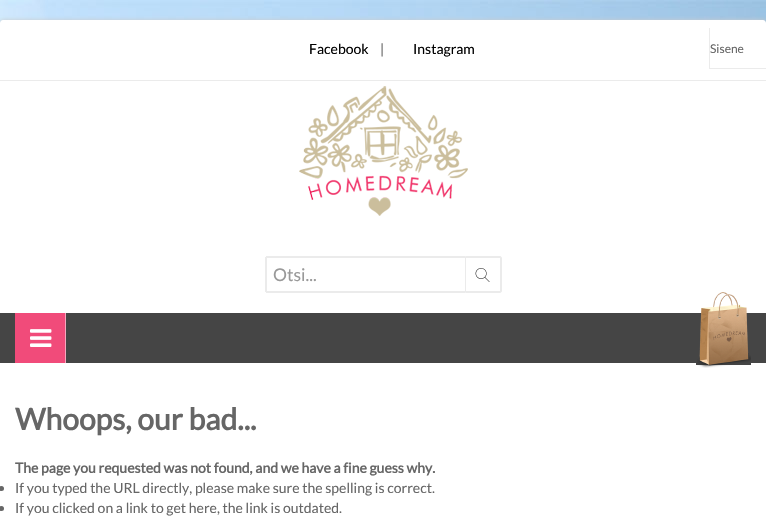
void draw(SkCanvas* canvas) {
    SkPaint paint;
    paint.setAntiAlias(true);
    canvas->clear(0xFFFFFFFF);
    canvas->drawImageRect(SkImages::DeferredFromEncodedData(SkData::MakeFromFileName("img1.png")), SkRect::MakeXYWH(0, 0, 766, 23), SkSamplingOptions());
    paint.setColor(0xFFCCCCCC);
    paint.setMaskFilter(SkMaskFilter::MakeBlur(kNormal_SkBlurStyle, 2));
    canvas->drawRoundRect(SkRect::MakeXYWH(0, 20, 766, 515), 3, 3, paint);
    paint.setMaskFilter(nullptr);
    paint.setColor(0xFFFFFFFF);
    canvas->drawPath(SkPathBuilder().moveTo(3, 20).lineTo(763, 20).cubicTo(764.5f, 20, 766, 21.5f, 766, 23).lineTo(766, 363).lineTo(0, 363).lineTo(0, 23).cubicTo(0, 21.5f, 1.5f, 20, 3, 20).close().detach(), paint);
    paint.setColor(0xFFEBEBEB);
    canvas->drawRect(SkRect::MakeXYWH(0, 80, 766, 1), paint);
    SkFont font1(fontMgr->matchFamilyStyle("Lato", SkFontStyle::Normal()), 14);
    font1.setSubpixel(true);
    paint.setColor(0xFF000000);
    canvas->drawString("Facebook", 309, 54, font1, paint);
    paint.setColor(0xFF666666);
    canvas->drawString("|", 380, 54, font1, paint);
    paint.setColor(0xFF000000);
    canvas->drawString("Instagram", 413, 54, font1, paint);
    paint.setColor(0xFFEBEBEB);
    canvas->drawRect(SkRect::MakeXYWH(709, 68, 57, 1), paint);
    canvas->drawRect(SkRect::MakeXYWH(709, 28, 1, 41), paint);
    SkFont font2(fontMgr->matchFamilyStyle("Lato", SkFontStyle::Normal()), 12);
    font2.setSubpixel(true);
    paint.setColor(0xFF666666);
    canvas->drawString("Sisene", 710, 53, font2, paint);
    canvas->drawImageRect(SkImages::DeferredFromEncodedData(SkData::MakeFromFileName("img2.png")), SkRect::MakeXYWH(299, 86, 169, 130), SkSamplingOptions());
    paint.setColor(0xFFEBEBEB);
    canvas->drawRect(SkRect::MakeXYWH(266, 256, 199, 2), paint);
    canvas->drawRect(SkRect::MakeXYWH(266, 291, 199, 2), paint);
    canvas->drawRect(SkRect::MakeXYWH(265, 257, 2, 35), paint);
    SkFont font3(fontMgr->matchFamilyStyle("Lato", SkFontStyle::Normal()), 17.5f);
    font3.setSubpixel(true);
    paint.setColor(0xFF999999);
    canvas->drawString("Otsi...", 273, 281, font3, paint);
    canvas->drawImageRect(SkImages::DeferredFromEncodedData(SkData::MakeFromFileName("img3.png")), SkRect::MakeXYWH(475, 268, 15, 14), SkSamplingOptions());
    paint.setStyle(SkPaint::kStroke_Style);
    paint.setStrokeWidth(1);
    paint.setColor(0xFFEBEBEB);
    canvas->drawPath(SkPathBuilder().moveTo(465.5f, 256.5f).lineTo(500, 256.5f).cubicTo(501, 256.5f, 501.5f, 257, 501.5f, 258).lineTo(501.5f, 291).cubicTo(501.5f, 292, 501, 292.5f, 500, 292.5f).lineTo(465.5f, 292.5f).close().detach(), paint);
    paint.setStyle(SkPaint::kFill_Style);
    canvas->drawRect(SkRect::MakeXYWH(465, 257, 36, 1), paint);
    canvas->drawRect(SkRect::MakeXYWH(500, 257, 1, 35), paint);
    canvas->drawRect(SkRect::MakeXYWH(465, 291, 36, 1), paint);
    paint.setColor(0xFF454545);
    canvas->drawRect(SkRect::MakeXYWH(0, 313, 766, 50), paint);
    paint.setColor(0xFFF14B7A);
    canvas->drawRect(SkRect::MakeXYWH(15, 313, 50, 50), paint);
    canvas->drawImageRect(SkImages::DeferredFromEncodedData(SkData::MakeFromFileName("img4.png")), SkRect::MakeXYWH(30, 329, 22, 18), SkSamplingOptions());
    paint.setColor(0xFFF8A5BD);
    canvas->drawRect(SkRect::MakeXYWH(65, 313, 1, 50), paint);
    paint.setColor(0xFFFFFFFF);
    canvas->drawRect(SkRect::MakeXYWH(0, 363, 766, 163), paint);
    paint.setColor(0xFF454545);
    canvas->drawRect(SkRect::MakeXYWH(696, 363, 55, 2), paint);
    canvas->drawImageRect(SkImages::DeferredFromEncodedData(SkData::MakeFromFileName("img5.png")), SkRect::MakeXYWH(697, 292, 54, 76), SkSamplingOptions());
    SkFont font4(fontMgr->matchFamilyStyle("Lato", SkFontStyle::Bold()), 30);
    font4.setSubpixel(true);
    paint.setColor(0xFF666666);
    canvas->drawString("Whoops, our bad...", 15, 430, font4, paint);
    SkFont font5(fontMgr->matchFamilyStyle("Lato", SkFontStyle::Bold()), 14);
    font5.setSubpixel(true);
    canvas->drawString("The page you requested was not found, and we have a fine guess why.", 15, 473, font5, paint);
    canvas->drawCircle(1.5f, 488.5f, 2.5f, paint);
    canvas->drawString("If you typed the URL directly, please make sure the spelling is correct.", 15, 493, font1, paint);
    canvas->drawCircle(1.5f, 508.5f, 2.5f, paint);
    canvas->drawString("If you clicked on a link to get here, the link is outdated.", 15, 513, font1, paint);
}
